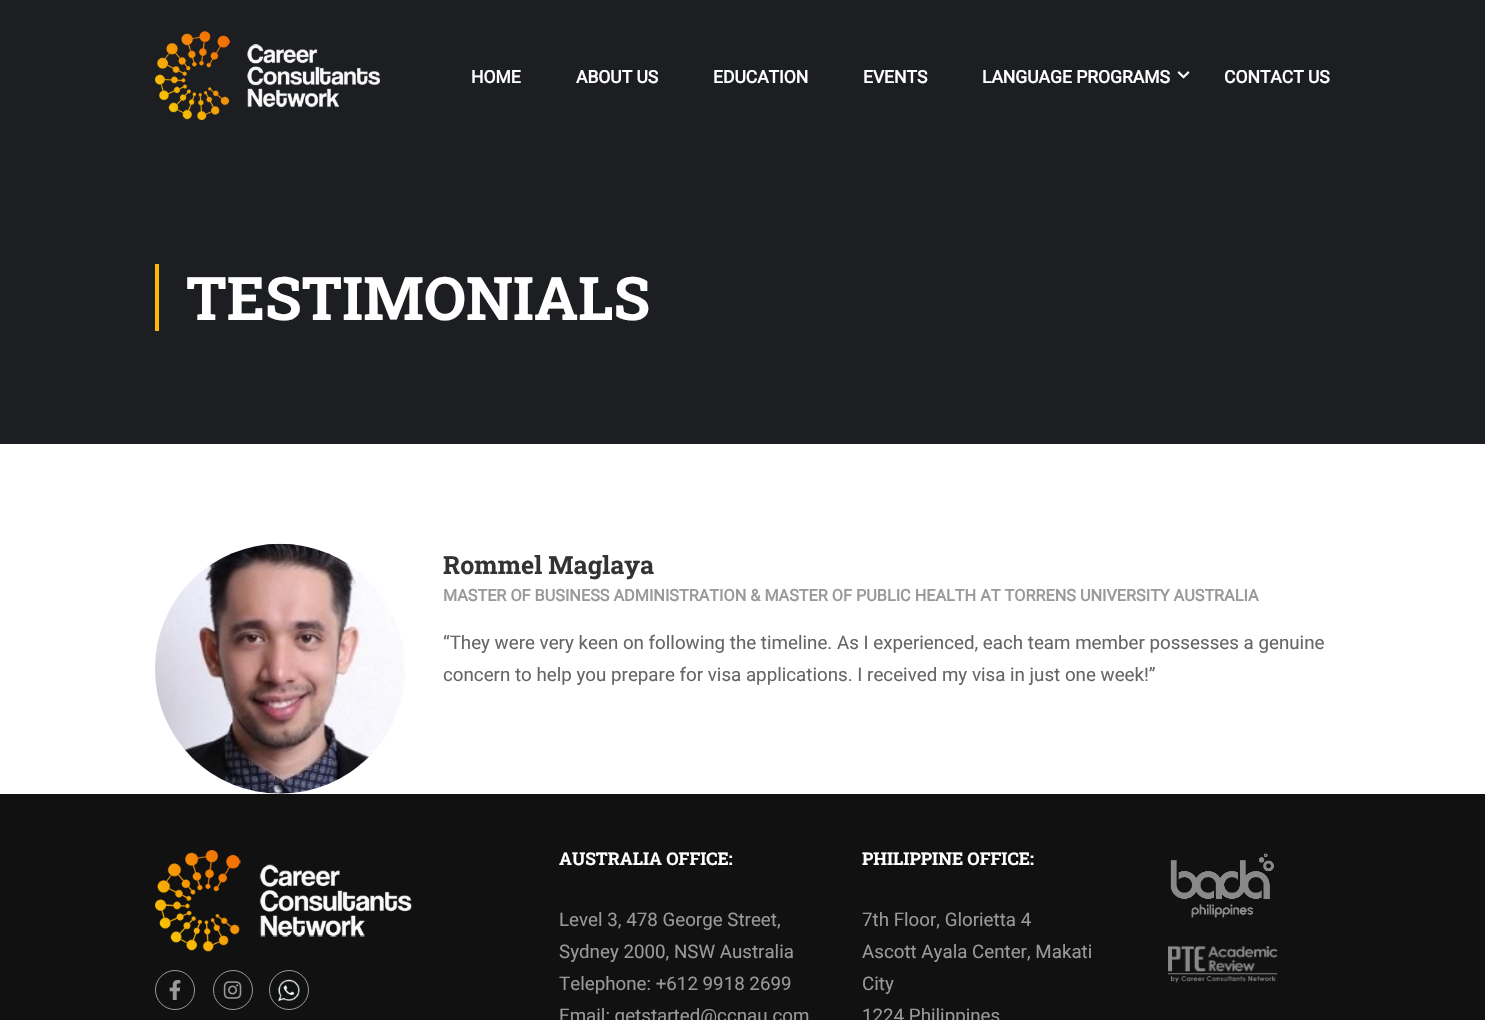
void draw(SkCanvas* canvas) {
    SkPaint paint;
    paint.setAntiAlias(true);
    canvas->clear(0xFFFFFFFF);
    paint.setColor(0xFF1C1E22);
    canvas->drawRect(SkRect::MakeXYWH(0, 0, 1485, 444), paint);
    canvas->drawImageRect(SkImages::DeferredFromEncodedData(SkData::MakeFromFileName("img1.png")), SkRect::MakeXYWH(155, 31, 225, 89), SkSamplingOptions());
    SkFont font1(fontMgr->matchFamilyStyle("Roboto", SkFontStyle::Bold()), 17.5f);
    font1.setSubpixel(true);
    paint.setColor(0xFFFFFFFF);
    canvas->drawString("HOME", 471, 83, font1, paint);
    canvas->drawString("ABOUT US", 576, 83, font1, paint);
    canvas->drawString("EDUCATION", 713, 83, font1, paint);
    canvas->drawString("EVENTS", 863, 83, font1, paint);
    canvas->drawString("LANGUAGE PROGRAMS", 982, 83, font1, paint);
    canvas->drawImageRect(SkImages::DeferredFromEncodedData(SkData::MakeFromFileName("img2.png")), SkRect::MakeXYWH(1177, 71, 13, 8), SkSamplingOptions());
    canvas->drawString("CONTACT US", 1224, 83, font1, paint);
    paint.setColor(0xFFFFB606);
    canvas->drawRect(SkRect::MakeXYWH(155, 264, 4, 67), paint);
    SkFont font2(fontMgr->matchFamilyStyle("Roboto Slab", SkFontStyle::Bold()), 60);
    font2.setSubpixel(true);
    paint.setColor(0xFFFFFFFF);
    canvas->drawString("TESTIMONIALS", 186, 320, font2, paint);
    canvas->drawImageRect(SkImages::DeferredFromEncodedData(SkData::MakeFromFileName("img3.png")), SkRect::MakeXYWH(155, 543, 250, 251), SkSamplingOptions());
    SkFont font3(fontMgr->matchFamilyStyle("Roboto Slab", SkFontStyle::Bold()), 25);
    font3.setSubpixel(true);
    paint.setColor(0xFF333333);
    canvas->drawString("Rommel Maglaya", 443, 574, font3, paint);
    SkFont font4(fontMgr->matchFamilyStyle("Roboto", SkFontStyle::Bold()), 16.25f);
    font4.setSubpixel(true);
    paint.setColor(0xFF999999);
    canvas->drawString("MASTER OF BUSINESS ADMINISTRATION & MASTER OF PUBLIC HEALTH AT TORRENS UNIVERSITY AUSTRALIA", 443, 601, font4, paint);
    SkFont font5(fontMgr->matchFamilyStyle("Roboto", SkFontStyle::Normal()), 18.75f);
    font5.setSubpixel(true);
    paint.setColor(0xFF666666);
    canvas->drawString("“They were very keen on following the timeline. As I experienced, each team member possesses a genuine", 443, 649, font5, paint);
    canvas->drawString("concern to help you prepare for visa applications. I received my visa in just one week!”", 443, 681, font5, paint);
    paint.setColor(0xFF111111);
    canvas->drawRect(SkRect::MakeXYWH(0, 794, 1485, 226), paint);
    canvas->drawImageRect(SkImages::DeferredFromEncodedData(SkData::MakeFromFileName("img4.png")), SkRect::MakeXYWH(155, 850, 257, 102), SkSamplingOptions());
    paint.setStyle(SkPaint::kStroke_Style);
    paint.setStrokeWidth(1);
    paint.setColor(0xFF999999);
    canvas->drawCircle(175, 990, 19.5f, paint);
    canvas->drawImageRect(SkImages::DeferredFromEncodedData(SkData::MakeFromFileName("img5.png")), SkRect::MakeXYWH(169, 980, 12, 20), SkSamplingOptions());
    canvas->drawCircle(233, 990, 19.5f, paint);
    canvas->drawImageRect(SkImages::DeferredFromEncodedData(SkData::MakeFromFileName("img6.png")), SkRect::MakeXYWH(223, 981, 19, 18), SkSamplingOptions());
    canvas->drawCircle(289, 990, 19.5f, paint);
    canvas->drawImageRect(SkImages::DeferredFromEncodedData(SkData::MakeFromFileName("img7.png")), SkRect::MakeXYWH(278, 979, 22, 23), SkSamplingOptions());
    SkFont font6(fontMgr->matchFamilyStyle("Roboto Slab", SkFontStyle::Bold()), 17.5f);
    font6.setSubpixel(true);
    paint.setStyle(SkPaint::kFill_Style);
    paint.setColor(0xFFFFFFFF);
    canvas->drawString("AUSTRALIA OFFICE:", 559, 865, font6, paint);
    paint.setColor(0xFF999999);
    canvas->drawString("Level 3, 478 George Street,", 559, 926, font5, paint);
    canvas->drawString("Sydney 2000, NSW Australia", 559, 958, font5, paint);
    canvas->drawString("Telephone: +612 9918 2699", 559, 990, font5, paint);
    canvas->drawString("Email: getstarted@ccnau.com", 559, 1022, font5, paint);
    paint.setColor(0xFFFFFFFF);
    canvas->drawString("PHILIPPINE OFFICE:", 862, 865, font6, paint);
    paint.setColor(0xFF999999);
    canvas->drawString("7th Floor, Glorietta 4", 862, 926, font5, paint);
    canvas->drawString("Ascott Ayala Center, Makati", 862, 958, font5, paint);
    canvas->drawString("City", 862, 990, font5, paint);
    canvas->drawString("1224 Philippines", 862, 1022, font5, paint);
    canvas->drawImageRect(SkImages::DeferredFromEncodedData(SkData::MakeFromFileName("img8.png")), SkRect::MakeXYWH(1170, 853, 104, 65), SkSamplingOptions());
    canvas->drawImageRect(SkImages::DeferredFromEncodedData(SkData::MakeFromFileName("img9.png")), SkRect::MakeXYWH(1168, 946, 110, 37), SkSamplingOptions());
}
